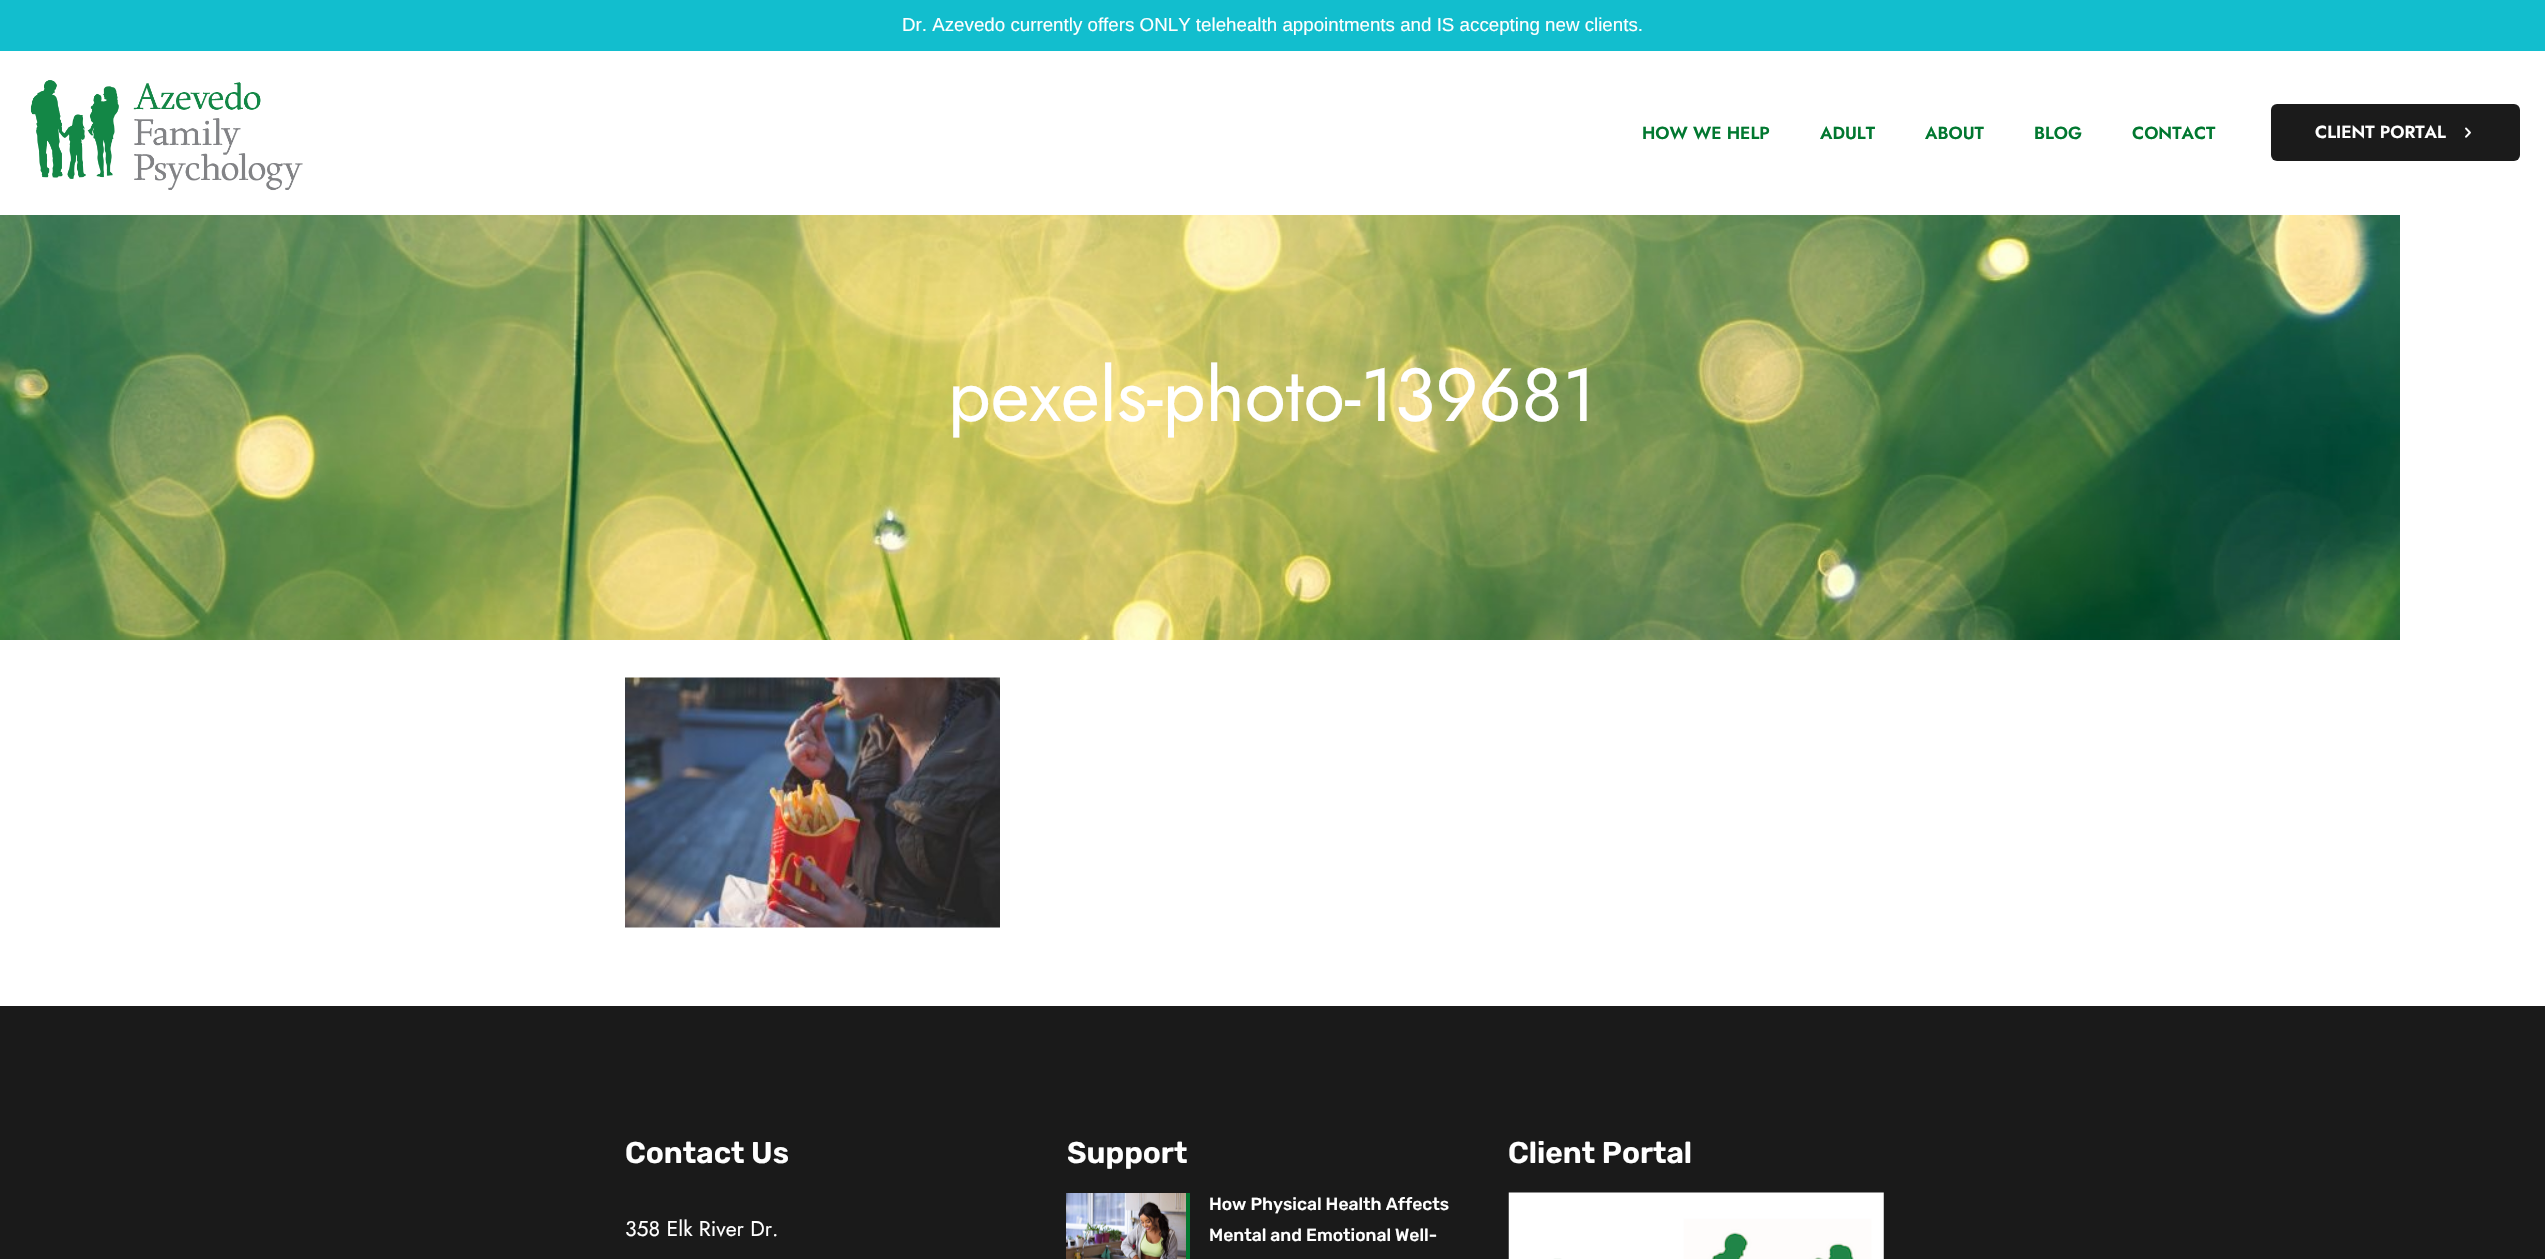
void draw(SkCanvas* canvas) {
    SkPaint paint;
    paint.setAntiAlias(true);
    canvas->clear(0xFFFFFFFF);
    paint.setColor(0xFF12BECE);
    canvas->drawRect(SkRect::MakeXYWH(0, 0, 2545, 51), paint);
    SkFont font1(fontMgr->matchFamilyStyle("Liberation Sans", SkFontStyle::Normal()), 18.75f);
    font1.setSubpixel(true);
    paint.setColor(0xFFFFFFFF);
    canvas->drawString("Dr. Azevedo currently offers ONLY telehealth appointments and IS accepting new clients.", 902, 31, font1, paint);
    canvas->drawImageRect(SkImages::DeferredFromEncodedData(SkData::MakeFromFileName("img1.png")), SkRect::MakeXYWH(30, 80, 273, 111), SkSamplingOptions());
    SkFont font2(fontMgr->matchFamilyStyle("Jost", SkFontStyle(600, SkFontStyle::kNormal_Width, SkFontStyle::kUpright_Slant)), 17.5f);
    font2.setSubpixel(true);
    paint.setColor(0xFF017830);
    canvas->drawString("HOW WE HELP", 1642, 139, font2, paint);
    canvas->drawString("ADULT", 1820, 139, font2, paint);
    canvas->drawString("ABOUT", 1925, 139, font2, paint);
    canvas->drawString("BLOG", 2034, 139, font2, paint);
    canvas->drawString("CONTACT", 2132, 139, font2, paint);
    paint.setColor(0xFF1B1B1B);
    canvas->drawRoundRect(SkRect::MakeXYWH(2271, 104, 249, 57), 6, 6, paint);
    paint.setColor(0xFFFFFFFF);
    canvas->drawString("CLIENT PORTAL", 2315, 138, font2, paint);
    canvas->drawImageRect(SkImages::DeferredFromEncodedData(SkData::MakeFromFileName("img2.png")), SkRect::MakeXYWH(2465, 127, 6, 11), SkSamplingOptions());
    canvas->drawImageRect(SkImages::DeferredFromEncodedData(SkData::MakeFromFileName("img3.png")), SkRect::MakeXYWH(0, 215, 2400, 425), SkSamplingOptions());
    SkFont font3(fontMgr->matchFamilyStyle("Jost", SkFontStyle::Normal()), 75);
    font3.setSubpixel(true);
    canvas->drawString("pexels-photo-139681", 948, 421, font3, paint);
    canvas->drawImageRect(SkImages::DeferredFromEncodedData(SkData::MakeFromFileName("img4.png")), SkRect::MakeXYWH(625, 677, 375, 251), SkSamplingOptions());
    paint.setColor(0xFF1A1A1A);
    canvas->drawRect(SkRect::MakeXYWH(0, 1006, 2545, 253), paint);
    SkFont font4(fontMgr->matchFamilyStyle("Rubik", SkFontStyle(600, SkFontStyle::kNormal_Width, SkFontStyle::kUpright_Slant)), 30);
    font4.setSubpixel(true);
    paint.setColor(0xFFFFFFFF);
    canvas->drawString("Contact Us", 625, 1163, font4, paint);
    SkFont font5(fontMgr->matchFamilyStyle("Jost", SkFontStyle::Normal()), 21.25f);
    font5.setSubpixel(true);
    canvas->drawString("358 Elk River Dr.", 625, 1236, font5, paint);
    canvas->drawString("Support", 1067, 1163, font4, paint);
    paint.setColor(0xFF017830);
    canvas->drawRect(SkRect::MakeXYWH(1186, 1193, 4, 66), paint);
    canvas->drawImageRect(SkImages::DeferredFromEncodedData(SkData::MakeFromFileName("img5.png")), SkRect::MakeXYWH(1066, 1193, 120, 66), SkSamplingOptions());
    SkFont font6(fontMgr->matchFamilyStyle("Rubik", SkFontStyle(500, SkFontStyle::kNormal_Width, SkFontStyle::kUpright_Slant)), 17.5f);
    font6.setSubpixel(true);
    paint.setColor(0xFFFFFFFF);
    canvas->drawString("How Physical Health Affects", 1209, 1210, font6, paint);
    canvas->drawString("Mental and Emotional Well-", 1209, 1241, font6, paint);
    canvas->drawString("Client Portal", 1508, 1163, font4, paint);
    canvas->drawImageRect(SkImages::DeferredFromEncodedData(SkData::MakeFromFileName("img6.png")), SkRect::MakeXYWH(1508, 1192, 376, 67), SkSamplingOptions());
}
